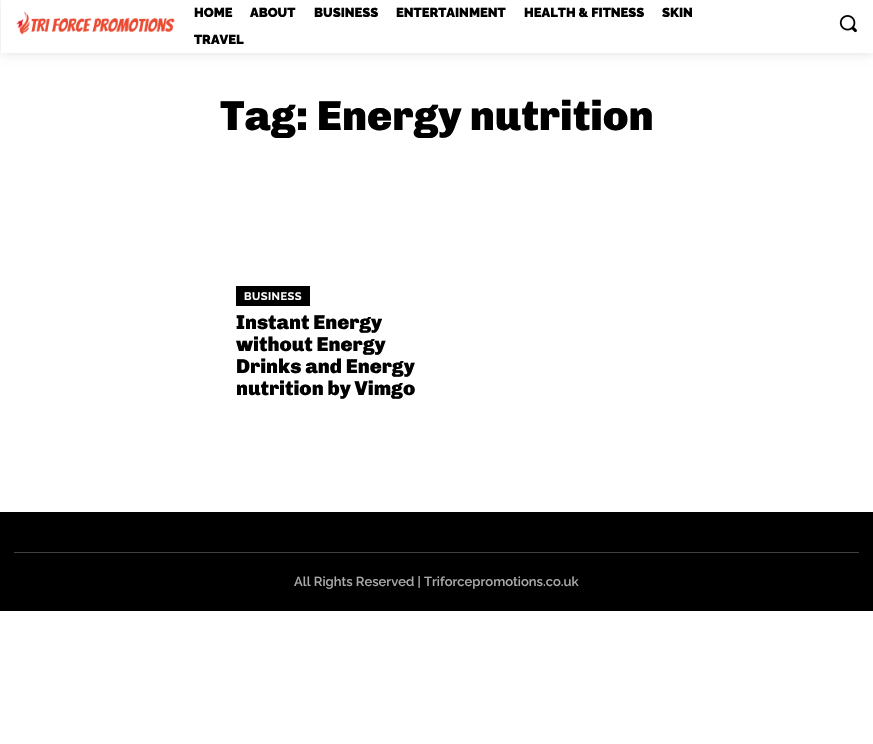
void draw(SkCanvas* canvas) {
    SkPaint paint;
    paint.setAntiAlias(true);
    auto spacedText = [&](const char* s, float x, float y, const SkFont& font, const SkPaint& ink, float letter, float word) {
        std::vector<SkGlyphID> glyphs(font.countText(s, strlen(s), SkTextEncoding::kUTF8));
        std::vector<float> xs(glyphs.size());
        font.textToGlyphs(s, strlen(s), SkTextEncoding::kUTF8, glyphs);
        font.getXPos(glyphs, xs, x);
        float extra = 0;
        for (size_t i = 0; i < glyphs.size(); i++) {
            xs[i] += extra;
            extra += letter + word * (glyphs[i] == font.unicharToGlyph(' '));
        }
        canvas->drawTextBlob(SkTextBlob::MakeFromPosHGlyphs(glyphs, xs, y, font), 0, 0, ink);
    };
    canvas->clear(0xFFFFFFFF);
    canvas->drawImageRect(SkImages::DeferredFromEncodedData(SkData::MakeFromFileName("img1.png")), SkRect::MakeXYWH(16, 11, 159, 24), SkSamplingOptions());
    canvas->save();
    canvas->clipPath(SkPathBuilder(SkPathFillType::kEvenOdd).moveTo(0, 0).lineTo(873, 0).lineTo(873, 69).lineTo(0, 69).close().moveTo(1, 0).lineTo(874, 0).lineTo(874, 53).lineTo(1, 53).close().detach(), true);
    paint.setColor(0x1F000000);
    paint.setMaskFilter(SkMaskFilter::MakeBlur(kNormal_SkBlurStyle, 5));
    canvas->drawRect(SkRect::MakeXYWH(1, 0, 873, 53), paint);
    paint.setMaskFilter(nullptr);
    canvas->restore();
    SkFont font1(fontMgr->matchFamilyStyle("Raleway", SkFontStyle(900, SkFontStyle::kNormal_Width, SkFontStyle::kUpright_Slant)), 13);
    font1.setSubpixel(true);
    paint.setColor(0xFF000000);
    canvas->drawString("HOME", 194, 17, font1, paint);
    canvas->drawString("ABOUT", 250, 17, font1, paint);
    canvas->drawString("BUSINESS", 314, 17, font1, paint);
    canvas->drawString("ENTERTAINMENT", 396, 17, font1, paint);
    canvas->drawString("HEALTH & FITNESS", 524, 17, font1, paint);
    canvas->drawString("SKIN", 662, 17, font1, paint);
    canvas->drawString("TRAVEL", 194, 44, font1, paint);
    canvas->drawImageRect(SkImages::DeferredFromEncodedData(SkData::MakeFromFileName("img2.png")), SkRect::MakeXYWH(839, 15, 18, 18), SkSamplingOptions());
    SkFont font2(fontMgr->matchFamilyStyle("Chivo", SkFontStyle(900, SkFontStyle::kNormal_Width, SkFontStyle::kUpright_Slant)), 42);
    font2.setSubpixel(true);
    canvas->drawString("Tag: Energy nutrition", 220, 130, font2, paint);
    canvas->drawRect(SkRect::MakeXYWH(236, 286, 74, 20), paint);
    SkFont font3(fontMgr->matchFamilyStyle("Raleway", SkFontStyle::Bold()), 11);
    font3.setSubpixel(true);
    paint.setColor(0xFFFFFFFF);
    spacedText("BUSINESS", 244, 300, font3, paint, 0.5f, 0);
    SkFont font4(fontMgr->matchFamilyStyle("Chivo", SkFontStyle(900, SkFontStyle::kNormal_Width, SkFontStyle::kUpright_Slant)), 20);
    font4.setSubpixel(true);
    paint.setColor(0xFF000000);
    canvas->drawString("Instant Energy", 236, 329, font4, paint);
    canvas->drawString("without Energy", 236, 351, font4, paint);
    canvas->drawString("Drinks and Energy", 236, 373, font4, paint);
    canvas->drawString("nutrition by Vimgo", 236, 395, font4, paint);
    canvas->drawRect(SkRect::MakeXYWH(0, 512, 873, 99), paint);
    paint.setColor(0xFF404040);
    canvas->drawRect(SkRect::MakeXYWH(14, 552, 845, 1), paint);
    SkFont font5(fontMgr->matchFamilyStyle("Raleway", SkFontStyle(600, SkFontStyle::kNormal_Width, SkFontStyle::kUpright_Slant)), 13);
    font5.setSubpixel(true);
    paint.setColor(0xFFAAAAAA);
    canvas->drawString("All Rights Reserved | Triforcepromotions.co.uk", 294, 586, font5, paint);
}
